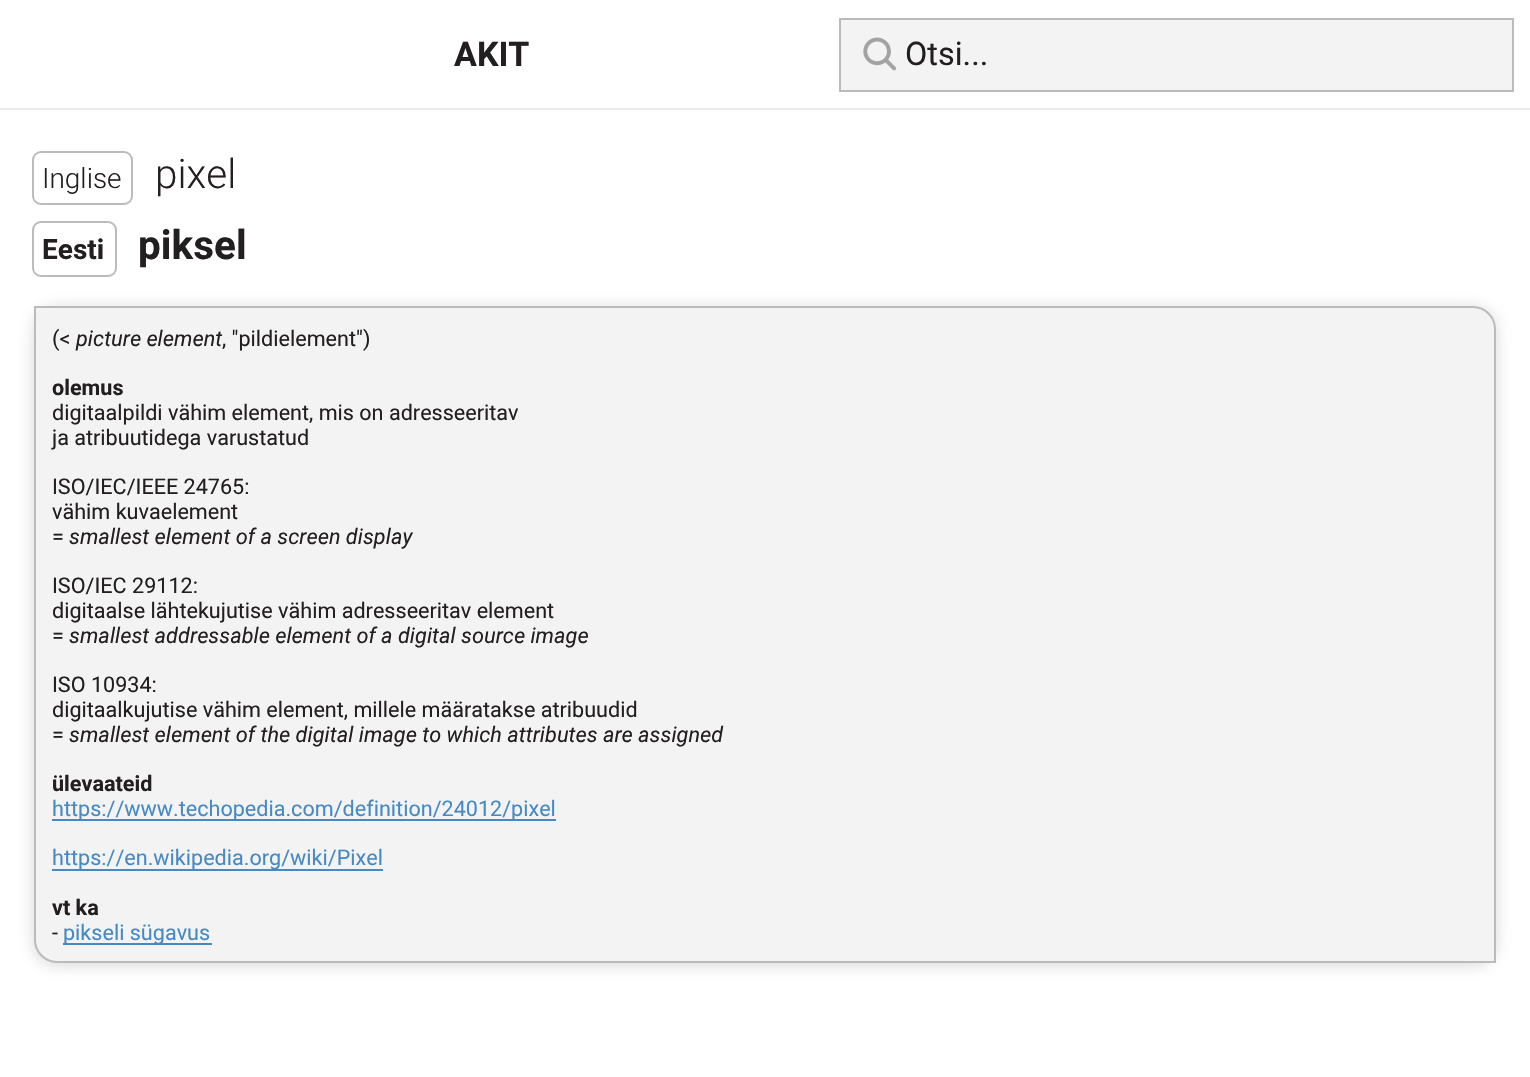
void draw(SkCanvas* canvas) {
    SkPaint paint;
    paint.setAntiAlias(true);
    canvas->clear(0xFFFFFFFF);
    paint.setColor(0xFFEBEBEB);
    canvas->drawRect(SkRect::MakeXYWH(0, 108, 1530, 2), paint);
    SkFont font1(fontMgr->matchFamilyStyle("Roboto", SkFontStyle::Bold()), 34);
    font1.setSubpixel(true);
    paint.setColor(0xFF231F20);
    canvas->drawString("AKIT", 454, 66, font1, paint);
    paint.setColor(0xFFF3F3F3);
    canvas->drawRect(SkRect::MakeXYWH(840, 19, 673, 72), paint);
    paint.setStyle(SkPaint::kStroke_Style);
    paint.setStrokeWidth(2);
    paint.setColor(0xFFBBBBBB);
    canvas->drawRect(SkRect::MakeXYWH(840, 19, 673, 72), paint);
    canvas->drawImageRect(SkImages::DeferredFromEncodedData(SkData::MakeFromFileName("img1.png")), SkRect::MakeXYWH(863, 37, 34, 34), SkSamplingOptions());
    SkFont font2(fontMgr->matchFamilyStyle("Roboto", SkFontStyle::Normal()), 32.5f);
    font2.setSubpixel(true);
    paint.setStyle(SkPaint::kFill_Style);
    paint.setColor(0xFF231F20);
    canvas->drawString("Otsi...", 905, 65, font2, paint);
    SkFont font3(fontMgr->matchFamilyStyle("Roboto", SkFontStyle(300, SkFontStyle::kNormal_Width, SkFontStyle::kUpright_Slant)), 28);
    font3.setSubpixel(true);
    canvas->drawString("Inglise", 42, 188, font3, paint);
    paint.setStyle(SkPaint::kStroke_Style);
    paint.setColor(0xFFBBBBBB);
    canvas->drawRoundRect(SkRect::MakeXYWH(33, 152, 99, 52), 8, 8, paint);
    SkFont font4(fontMgr->matchFamilyStyle("Roboto", SkFontStyle(300, SkFontStyle::kNormal_Width, SkFontStyle::kUpright_Slant)), 40.5f);
    font4.setSubpixel(true);
    paint.setStyle(SkPaint::kFill_Style);
    paint.setColor(0xFF231F20);
    canvas->drawString("pixel", 155, 188, font4, paint);
    SkFont font5(fontMgr->matchFamilyStyle("Roboto", SkFontStyle::Bold()), 28);
    font5.setSubpixel(true);
    canvas->drawString("Eesti", 42, 259, font5, paint);
    paint.setStyle(SkPaint::kStroke_Style);
    paint.setColor(0xFFBBBBBB);
    canvas->drawRoundRect(SkRect::MakeXYWH(33, 222, 83, 54), 8, 8, paint);
    SkFont font6(fontMgr->matchFamilyStyle("Roboto", SkFontStyle::Bold()), 40.5f);
    font6.setSubpixel(true);
    paint.setStyle(SkPaint::kFill_Style);
    paint.setColor(0xFF231F20);
    canvas->drawString("piksel", 138, 259, font6, paint);
    paint.setColor(0xCCCCCCCC);
    paint.setMaskFilter(SkMaskFilter::MakeBlur(kNormal_SkBlurStyle, 8));
    canvas->drawRoundRect(SkRect::MakeXYWH(34, 308, 1462, 657), 23, 23, paint);
    paint.setMaskFilter(nullptr);
    paint.setColor(0xFFF3F3F3);
    canvas->drawPath(SkPathBuilder().moveTo(35, 307).lineTo(1473, 307).cubicTo(1485, 307, 1495, 317, 1495, 329).lineTo(1495, 962).lineTo(57, 962).cubicTo(45, 962, 35, 952, 35, 940).close().detach(), paint);
    paint.setStyle(SkPaint::kStroke_Style);
    paint.setColor(0xFFBBBBBB);
    canvas->drawPath(SkPathBuilder().moveTo(35, 307).lineTo(1473, 307).cubicTo(1485, 307, 1495, 317, 1495, 329).lineTo(1495, 962).lineTo(57, 962).cubicTo(45, 962, 35, 952, 35, 940).close().detach(), paint);
    SkFont font7(fontMgr->matchFamilyStyle("Roboto", SkFontStyle::Normal()), 21.6f);
    font7.setSubpixel(true);
    paint.setStyle(SkPaint::kFill_Style);
    paint.setColor(0xFF231F20);
    canvas->drawString("(<", 52, 346, font7, paint);
    SkFont font8(fontMgr->matchFamilyStyle("Roboto", SkFontStyle::Italic()), 21.6f);
    font8.setSubpixel(true);
    canvas->drawString("picture element", 76, 346, font8, paint);
    canvas->drawString(", \"pildielement\")", 222, 346, font7, paint);
    SkFont font9(fontMgr->matchFamilyStyle("Roboto", SkFontStyle::Bold()), 21.6f);
    font9.setSubpixel(true);
    canvas->drawString("olemus", 52, 395, font9, paint);
    canvas->drawString("digitaalpildi vähim element, mis on adresseeritav", 52, 420, font7, paint);
    canvas->drawString("ja atribuutidega varustatud", 52, 445, font7, paint);
    canvas->drawString("ISO/IEC/IEEE 24765:", 52, 494, font7, paint);
    canvas->drawString("vähim kuvaelement", 52, 519, font7, paint);
    canvas->drawString("=", 52, 544, font7, paint);
    canvas->drawString("smallest element of a screen display", 69, 544, font8, paint);
    canvas->drawString("ISO/IEC 29112:", 52, 593, font7, paint);
    canvas->drawString("digitaalse lähtekujutise vähim adresseeritav element", 52, 618, font7, paint);
    canvas->drawString("=", 52, 643, font7, paint);
    canvas->drawString("smallest addressable element of a digital source image", 69, 643, font8, paint);
    canvas->drawString("ISO 10934:", 52, 692, font7, paint);
    canvas->drawString("digitaalkujutise vähim element, millele määratakse atribuudid", 52, 717, font7, paint);
    canvas->drawString("=", 52, 742, font7, paint);
    canvas->drawString("smallest element of the digital image to which attributes are assigned", 69, 742, font8, paint);
    canvas->drawString("ülevaateid", 52, 791, font9, paint);
    paint.setColor(0xFF4789C2);
    canvas->drawRect(SkRect::MakeXYWH(52, 819, 504, 2), paint);
    canvas->drawString("https://www.techopedia.com/definition/24012/pixel", 52, 816, font7, paint);
    canvas->drawRect(SkRect::MakeXYWH(52, 869, 331, 2), paint);
    canvas->drawString("https://en.wikipedia.org/wiki/Pixel", 52, 865, font7, paint);
    paint.setColor(0xFF231F20);
    canvas->drawString("vt ka", 52, 915, font9, paint);
    canvas->drawString("-", 52, 940, font7, paint);
    paint.setColor(0xFF4789C2);
    canvas->drawRect(SkRect::MakeXYWH(63, 943, 149, 2), paint);
    canvas->drawString("pikseli sügavus", 63, 940, font7, paint);
}
